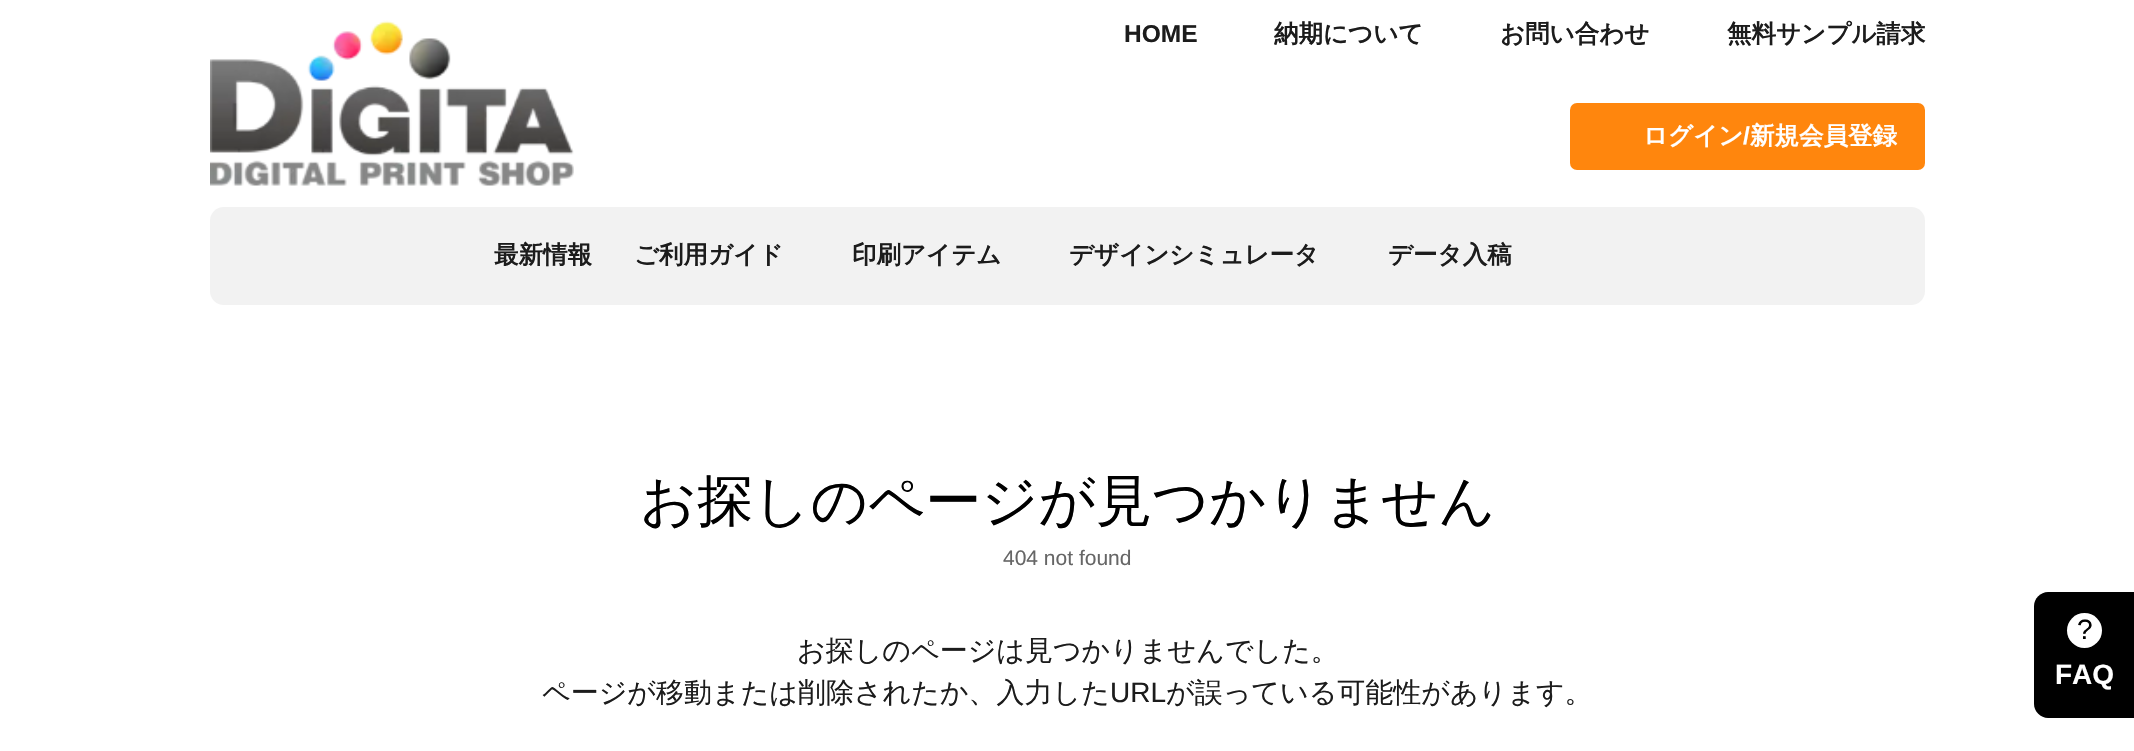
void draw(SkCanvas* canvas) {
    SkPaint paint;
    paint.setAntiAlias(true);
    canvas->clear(0xFFFFFFFF);
    canvas->drawImageRect(SkImages::DeferredFromEncodedData(SkData::MakeFromFileName("img1.png")), SkRect::MakeXYWH(210, 20, 364, 166), SkSamplingOptions());
    SkFont font1(fontMgr->matchFamilyStyle("Liberation Sans", SkFontStyle::Bold()), 24.5f);
    font1.setSubpixel(true);
    paint.setColor(0xFF1C1C1C);
    canvas->drawString("HOME", 1124, 42, font1, paint);
    SkFont font2(fontMgr->matchFamilyStyle("WenQuanYi Zen Hei", SkFontStyle::Bold()), 24.5f);
    font2.setSubpixel(true);
    canvas->drawString("納期について", 1274, 42, font2, paint);
    canvas->drawString("お問い合わせ", 1500, 42, font2, paint);
    canvas->drawString("無料サンプル請求", 1727, 42, font2, paint);
    paint.setColor(0xFFFF860D);
    canvas->drawRoundRect(SkRect::MakeXYWH(1570, 103, 355, 67), 7, 7, paint);
    paint.setColor(0xFFFFFFFF);
    canvas->drawString("ログイン", 1643, 144, font2, paint);
    canvas->drawString("/", 1743, 144, font1, paint);
    canvas->drawString("新規会員登録", 1750, 144, font2, paint);
    paint.setColor(0xFFF2F2F2);
    canvas->drawRoundRect(SkRect::MakeXYWH(210, 207, 1715, 98), 14, 14, paint);
    paint.setColor(0xFF1C1C1C);
    canvas->drawString("最新情報", 494, 263, font2, paint);
    canvas->drawString("ご利用ガイド", 634, 263, font2, paint);
    canvas->drawString("印刷アイテム", 852, 263, font2, paint);
    canvas->drawString("デザインシミュレータ", 1069, 263, font2, paint);
    canvas->drawString("データ入稿", 1388, 263, font2, paint);
    SkFont font3(fontMgr->matchFamilyStyle("WenQuanYi Zen Hei", SkFontStyle(500, SkFontStyle::kNormal_Width, SkFontStyle::kUpright_Slant)), 56);
    font3.setSubpixel(true);
    paint.setColor(0xFF000000);
    canvas->drawString("お探しのページが見つかりません", 640, 520, font3, paint);
    SkFont font4(fontMgr->matchFamilyStyle("Liberation Sans", SkFontStyle::Normal()), 21);
    font4.setSubpixel(true);
    paint.setColor(0xFF666666);
    canvas->drawString("404 not found", 1003, 565, font4, paint);
    SkFont font5(fontMgr->matchFamilyStyle("WenQuanYi Zen Hei", SkFontStyle(500, SkFontStyle::kNormal_Width, SkFontStyle::kUpright_Slant)), 28);
    font5.setSubpixel(true);
    paint.setColor(0xFF1C1C1C);
    canvas->drawString("お探しのページは見つかりませんでした。", 797, 660, font5, paint);
    canvas->drawString("ページが移動または削除されたか、入力した", 542, 702, font5, paint);
    SkFont font6(fontMgr->matchFamilyStyle("Liberation Sans", SkFontStyle::Normal()), 28);
    font6.setSubpixel(true);
    canvas->drawString("URL", 1110, 702, font6, paint);
    canvas->drawString("が誤っている可能性があります。", 1166, 702, font5, paint);
    paint.setColor(0xFF000000);
    canvas->drawPath(SkPathBuilder().moveTo(2048, 592).lineTo(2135, 592).lineTo(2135, 718).lineTo(2048, 718).cubicTo(2040.5f, 718, 2034, 711.5f, 2034, 704).lineTo(2034, 606).cubicTo(2034, 598.5f, 2040.5f, 592, 2048, 592).close().detach(), paint);
    paint.setColor(0xFFFFFFFF);
    canvas->drawCircle(2084.5f, 630.5f, 17.5f, paint);
    paint.setColor(0xFF000000);
    canvas->drawString("?", 2077, 639, font6, paint);
    SkFont font7(fontMgr->matchFamilyStyle("Liberation Sans", SkFontStyle::Bold()), 28);
    font7.setSubpixel(true);
    paint.setColor(0xFFFFFFFF);
    canvas->drawString("FAQ", 2055, 684, font7, paint);
}
